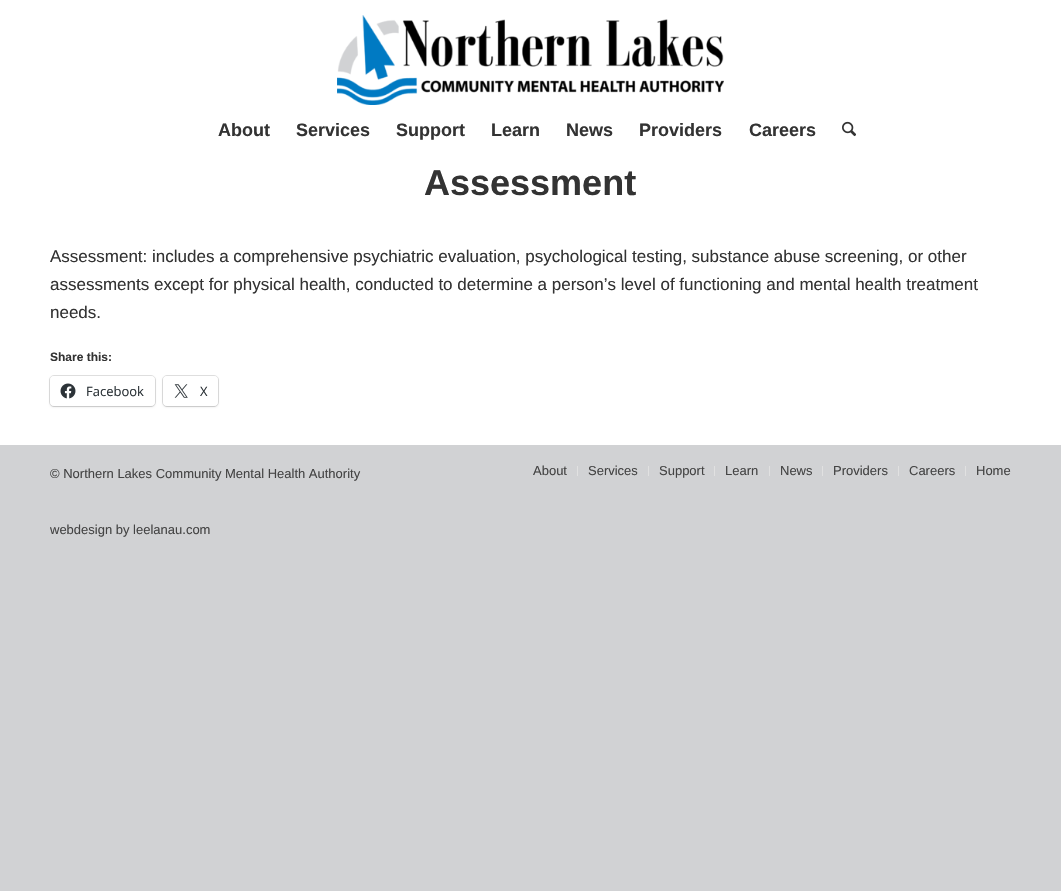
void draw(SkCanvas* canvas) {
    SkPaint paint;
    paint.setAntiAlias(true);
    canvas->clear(0xFFD1D2D4);
    paint.setColor(0xFFFFFFFF);
    canvas->drawRect(SkRect::MakeXYWH(0, 0, 1061, 445), paint);
    canvas->drawImageRect(SkImages::DeferredFromEncodedData(SkData::MakeFromFileName("img1.png")), SkRect::MakeXYWH(337, 15, 387, 90), SkSamplingOptions());
    SkFont font1(fontMgr->matchFamilyStyle("Liberation Sans", SkFontStyle::Bold()), 18);
    font1.setSubpixel(true);
    paint.setColor(0xFF333333);
    canvas->drawString("About", 218, 136, font1, paint);
    canvas->drawString("Services", 296, 136, font1, paint);
    canvas->drawString("Support", 396, 136, font1, paint);
    canvas->drawString("Learn", 491, 136, font1, paint);
    canvas->drawString("News", 566, 136, font1, paint);
    canvas->drawString("Providers", 639, 136, font1, paint);
    canvas->drawString("Careers", 749, 136, font1, paint);
    canvas->drawImageRect(SkImages::DeferredFromEncodedData(SkData::MakeFromFileName("img2.png")), SkRect::MakeXYWH(842, 121, 14, 16), SkSamplingOptions());
    SkFont font2(fontMgr->matchFamilyStyle("Liberation Sans", SkFontStyle::Bold()), 36);
    font2.setSubpixel(true);
    canvas->drawString("Assessment", 424, 195, font2, paint);
    SkFont font3(fontMgr->matchFamilyStyle("Liberation Sans", SkFontStyle::Normal()), 17);
    font3.setSubpixel(true);
    canvas->drawString("Assessment: includes a comprehensive psychiatric evaluation, psychological testing, substance abuse screening, or other", 50, 262, font3, paint);
    canvas->drawString("assessments except for physical health, conducted to determine a person’s level of functioning and mental health treatment", 50, 290, font3, paint);
    canvas->drawString("needs.", 50, 318, font3, paint);
    SkFont font4(fontMgr->matchFamilyStyle("Liberation Sans", SkFontStyle::Bold()), 12);
    font4.setSubpixel(true);
    canvas->drawString("Share this:", 50, 361, font4, paint);
    paint.setStyle(SkPaint::kStroke_Style);
    paint.setStrokeWidth(1);
    paint.setColor(0xFFE0E0E0);
    canvas->drawRoundRect(SkRect::MakeXYWH(49.5f, 375.5f, 106, 31), 4.5f, 4.5f, paint);
    paint.setStyle(SkPaint::kFill_Style);
    paint.setColor(0x1F000000);
    paint.setMaskFilter(SkMaskFilter::MakeBlur(kNormal_SkBlurStyle, 1));
    canvas->drawRoundRect(SkRect::MakeXYWH(50, 377, 105, 30), 4, 4, paint);
    paint.setMaskFilter(nullptr);
    paint.setColor(0xFFFFFFFF);
    canvas->drawRoundRect(SkRect::MakeXYWH(50, 376, 105, 30), 4, 4, paint);
    canvas->drawImageRect(SkImages::DeferredFromEncodedData(SkData::MakeFromFileName("img3.png")), SkRect::MakeXYWH(60, 383, 16, 16), SkSamplingOptions());
    SkFont font5(fontMgr->matchFamilyStyle("Open Sans", SkFontStyle::Normal()), 13);
    font5.setSubpixel(true);
    paint.setColor(0xFF2C3338);
    canvas->drawString("Facebook", 86, 396, font5, paint);
    paint.setStyle(SkPaint::kStroke_Style);
    paint.setColor(0xFFE0E0E0);
    canvas->drawRoundRect(SkRect::MakeXYWH(162.5f, 375.5f, 56, 31), 4.5f, 4.5f, paint);
    paint.setStyle(SkPaint::kFill_Style);
    paint.setColor(0x1F000000);
    paint.setMaskFilter(SkMaskFilter::MakeBlur(kNormal_SkBlurStyle, 1));
    canvas->drawRoundRect(SkRect::MakeXYWH(163, 377, 55, 30), 4, 4, paint);
    paint.setMaskFilter(nullptr);
    paint.setColor(0xFFFFFFFF);
    canvas->drawRoundRect(SkRect::MakeXYWH(163, 376, 55, 30), 4, 4, paint);
    canvas->drawImageRect(SkImages::DeferredFromEncodedData(SkData::MakeFromFileName("img4.png")), SkRect::MakeXYWH(174, 384, 14, 14), SkSamplingOptions());
    paint.setColor(0xFF2C3338);
    canvas->drawString("X", 200, 396, font5, paint);
    SkFont font6(fontMgr->matchFamilyStyle("Liberation Sans", SkFontStyle::Normal()), 13);
    font6.setSubpixel(true);
    paint.setColor(0xFF444444);
    canvas->drawString("© Northern Lakes Community Mental Health Authority", 50, 478, font6, paint);
    canvas->drawString("webdesign by leelanau.com", 50, 534, font6, paint);
    canvas->drawString("About", 533, 475, font6, paint);
    paint.setColor(0xFFE1E1E1);
    canvas->drawRect(SkRect::MakeXYWH(577, 466, 1, 10), paint);
    paint.setColor(0xFF444444);
    canvas->drawString("Services", 588, 475, font6, paint);
    paint.setColor(0xFFE1E1E1);
    canvas->drawRect(SkRect::MakeXYWH(648, 466, 1, 10), paint);
    paint.setColor(0xFF444444);
    canvas->drawString("Support", 659, 475, font6, paint);
    paint.setColor(0xFFE1E1E1);
    canvas->drawRect(SkRect::MakeXYWH(714, 466, 1, 10), paint);
    paint.setColor(0xFF444444);
    canvas->drawString("Learn", 725, 475, font6, paint);
    paint.setColor(0xFFE1E1E1);
    canvas->drawRect(SkRect::MakeXYWH(769, 466, 1, 10), paint);
    paint.setColor(0xFF444444);
    canvas->drawString("News", 780, 475, font6, paint);
    paint.setColor(0xFFE1E1E1);
    canvas->drawRect(SkRect::MakeXYWH(822, 466, 1, 10), paint);
    paint.setColor(0xFF444444);
    canvas->drawString("Providers", 833, 475, font6, paint);
    paint.setColor(0xFFE1E1E1);
    canvas->drawRect(SkRect::MakeXYWH(898, 466, 1, 10), paint);
    paint.setColor(0xFF444444);
    canvas->drawString("Careers", 909, 475, font6, paint);
    paint.setColor(0xFFE1E1E1);
    canvas->drawRect(SkRect::MakeXYWH(965, 466, 1, 10), paint);
    paint.setColor(0xFF444444);
    canvas->drawString("Home", 976, 475, font6, paint);
}
